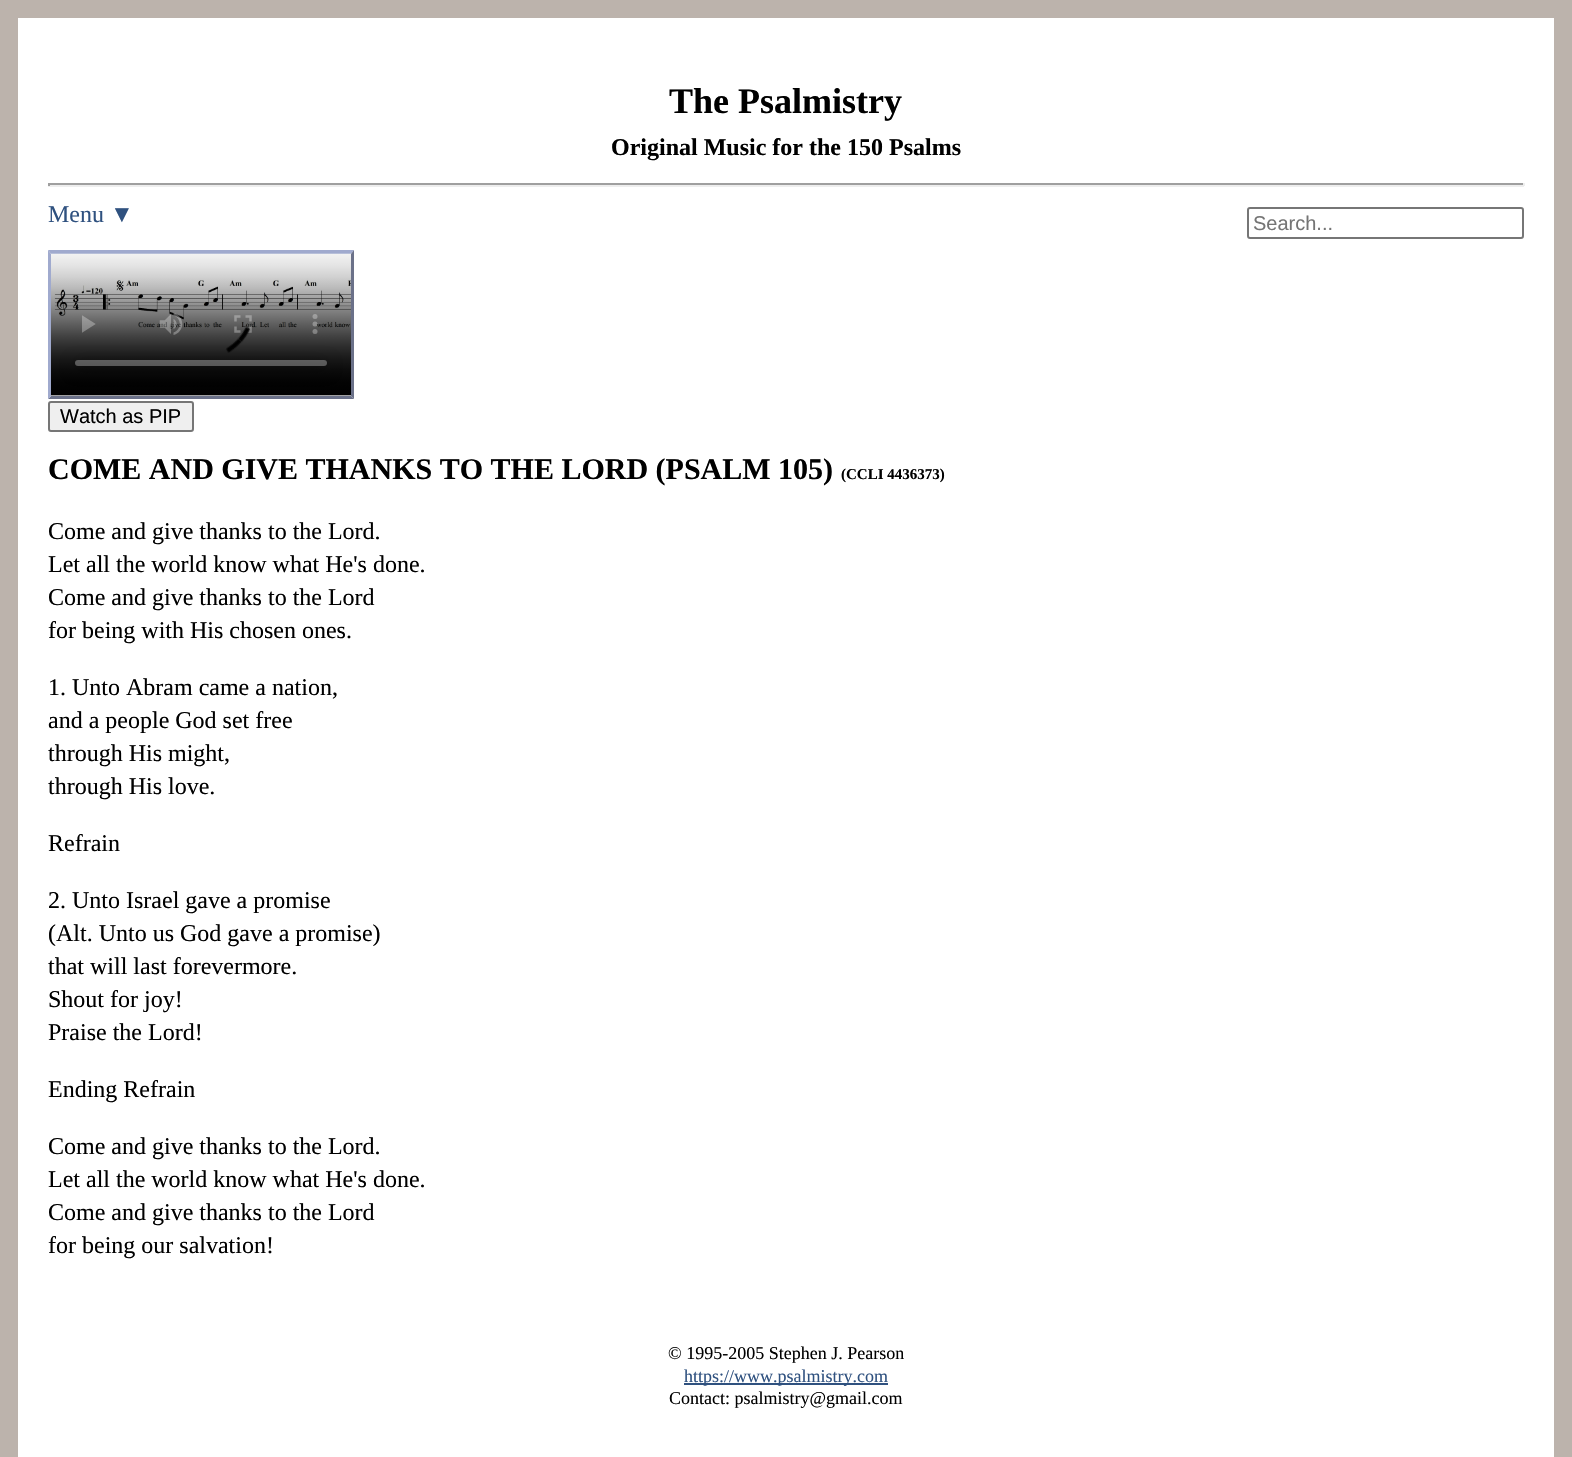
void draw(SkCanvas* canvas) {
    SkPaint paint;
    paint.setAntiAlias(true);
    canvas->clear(0xFFBCB3AC);
    paint.setColor(0xFFFFFFFF);
    canvas->drawRect(SkRect::MakeXYWH(18, 18, 1536, 1439), paint);
    SkFont font1(fontMgr->matchFamilyStyle("Liberation Serif", SkFontStyle::Bold()), 36);
    font1.setSubpixel(true);
    paint.setColor(0xFF000000);
    canvas->drawString("The Psalmistry", 669, 113, font1, paint);
    SkFont font2(fontMgr->matchFamilyStyle("Liberation Serif", SkFontStyle::Bold()), 24);
    font2.setSubpixel(true);
    canvas->drawString("Original Music for the 150 Psalms", 611, 155, font2, paint);
    paint.setColor(0xFF9F9F9F);
    canvas->drawRect(SkRect::MakeXYWH(48, 183, 1476, 2), paint);
    paint.setColor(0xFFEEEEEE);
    canvas->drawRect(SkRect::MakeXYWH(1523, 183, 2, 3), paint);
    canvas->drawRect(SkRect::MakeXYWH(48, 185, 1476, 2), paint);
    paint.setColor(0xFF9F9F9F);
    canvas->drawRect(SkRect::MakeXYWH(48, 183, 2, 3), paint);
    SkFont font3(fontMgr->matchFamilyStyle("Liberation Serif", SkFontStyle::Normal()), 24);
    font3.setSubpixel(true);
    paint.setColor(0xFF2F517F);
    canvas->drawString("Menu ▼", 48, 222, font3, paint);
    paint.setStyle(SkPaint::kStroke_Style);
    paint.setStrokeWidth(2);
    paint.setColor(0xFF767676);
    canvas->drawRoundRect(SkRect::MakeXYWH(1248, 208, 275, 30), 2, 2, paint);
    SkFont font4(fontMgr->matchFamilyStyle("Liberation Sans", SkFontStyle::Normal()), 20);
    font4.setSubpixel(true);
    paint.setStyle(SkPaint::kFill_Style);
    paint.setColor(0xFF757575);
    canvas->drawString("Search...", 1253, 230, font4, paint);
    paint.setColor(0xFFA0AACE);
    canvas->drawPath(SkPathBuilder().moveTo(48, 250).lineTo(354, 250).lineTo(351, 254).lineTo(51, 254).close().detach(), paint);
    paint.setColor(0xFF6B7189);
    canvas->drawPath(SkPathBuilder().moveTo(354, 250).lineTo(354, 399).lineTo(351, 396).lineTo(351, 254).close().detach(), paint);
    canvas->drawPath(SkPathBuilder().moveTo(354, 399).lineTo(48, 399).lineTo(51, 396).lineTo(351, 396).close().detach(), paint);
    paint.setColor(0xFFA0AACE);
    canvas->drawPath(SkPathBuilder().moveTo(48, 399).lineTo(48, 250).lineTo(51, 254).lineTo(51, 396).close().detach(), paint);
    canvas->drawImageRect(SkImages::DeferredFromEncodedData(SkData::MakeFromFileName("img1.png")), SkRect::MakeXYWH(51, 253, 300, 143), SkSamplingOptions());
    paint.setColor(0xFFEFEFEF);
    canvas->drawRoundRect(SkRect::MakeXYWH(49, 402, 144, 29), 2, 2, paint);
    paint.setStyle(SkPaint::kStroke_Style);
    paint.setColor(0xFF767676);
    canvas->drawRoundRect(SkRect::MakeXYWH(49, 402, 144, 29), 2, 2, paint);
    paint.setStyle(SkPaint::kFill_Style);
    paint.setColor(0xFF000000);
    canvas->drawString("Watch as PIP", 60, 423, font4, paint);
    SkFont font5(fontMgr->matchFamilyStyle("Liberation Serif", SkFontStyle::Bold()), 30);
    font5.setSubpixel(true);
    canvas->drawString("COME AND GIVE THANKS TO THE LORD (PSALM 105)", 48, 479, font5, paint);
    SkFont font6(fontMgr->matchFamilyStyle("Liberation Serif", SkFontStyle::Bold()), 15);
    font6.setSubpixel(true);
    canvas->drawString("(CCLI 4436373)", 841, 479, font6, paint);
    canvas->drawString("Come and give thanks to the Lord.", 48, 539, font3, paint);
    canvas->drawString("Let all the world know what He's done.", 48, 572, font3, paint);
    canvas->drawString("Come and give thanks to the Lord", 48, 605, font3, paint);
    canvas->drawString("for being with His chosen ones.", 48, 638, font3, paint);
    canvas->drawString("1. Unto Abram came a nation,", 48, 695, font3, paint);
    canvas->drawString("and a people God set free", 48, 728, font3, paint);
    canvas->drawString("through His might,", 48, 761, font3, paint);
    canvas->drawString("through His love.", 48, 794, font3, paint);
    canvas->drawString("Refrain", 48, 851, font3, paint);
    canvas->drawString("2. Unto Israel gave a promise", 48, 908, font3, paint);
    canvas->drawString("(Alt. Unto us God gave a promise)", 48, 941, font3, paint);
    canvas->drawString("that will last forevermore.", 48, 974, font3, paint);
    canvas->drawString("Shout for joy!", 48, 1007, font3, paint);
    canvas->drawString("Praise the Lord!", 48, 1040, font3, paint);
    canvas->drawString("Ending Refrain", 48, 1097, font3, paint);
    canvas->drawString("Come and give thanks to the Lord.", 48, 1154, font3, paint);
    canvas->drawString("Let all the world know what He's done.", 48, 1187, font3, paint);
    canvas->drawString("Come and give thanks to the Lord", 48, 1220, font3, paint);
    canvas->drawString("for being our salvation!", 48, 1253, font3, paint);
    SkFont font7(fontMgr->matchFamilyStyle("Liberation Serif", SkFontStyle::Normal()), 18);
    font7.setSubpixel(true);
    canvas->drawString("© 1995-2005 Stephen J. Pearson", 668, 1359, font7, paint);
    paint.setColor(0xFF2F517F);
    canvas->drawRect(SkRect::MakeXYWH(684, 1383, 204, 2), paint);
    canvas->drawString("https://www.psalmistry.com", 684, 1382, font7, paint);
    paint.setColor(0xFF000000);
    canvas->drawString("Contact: psalmistry@gmail.com", 669, 1404, font7, paint);
}
